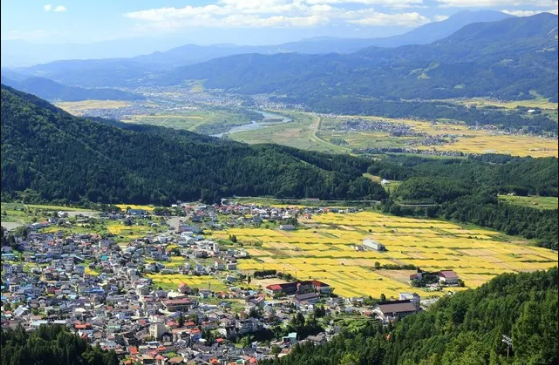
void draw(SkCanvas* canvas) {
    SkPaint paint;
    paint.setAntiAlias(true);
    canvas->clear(0xFF111111);
    canvas->drawImageRect(SkImages::DeferredFromEncodedData(SkData::MakeFromFileName("img1.png")), SkRect::MakeXYWH(1, 0, 557, 365), SkSamplingOptions());
}
